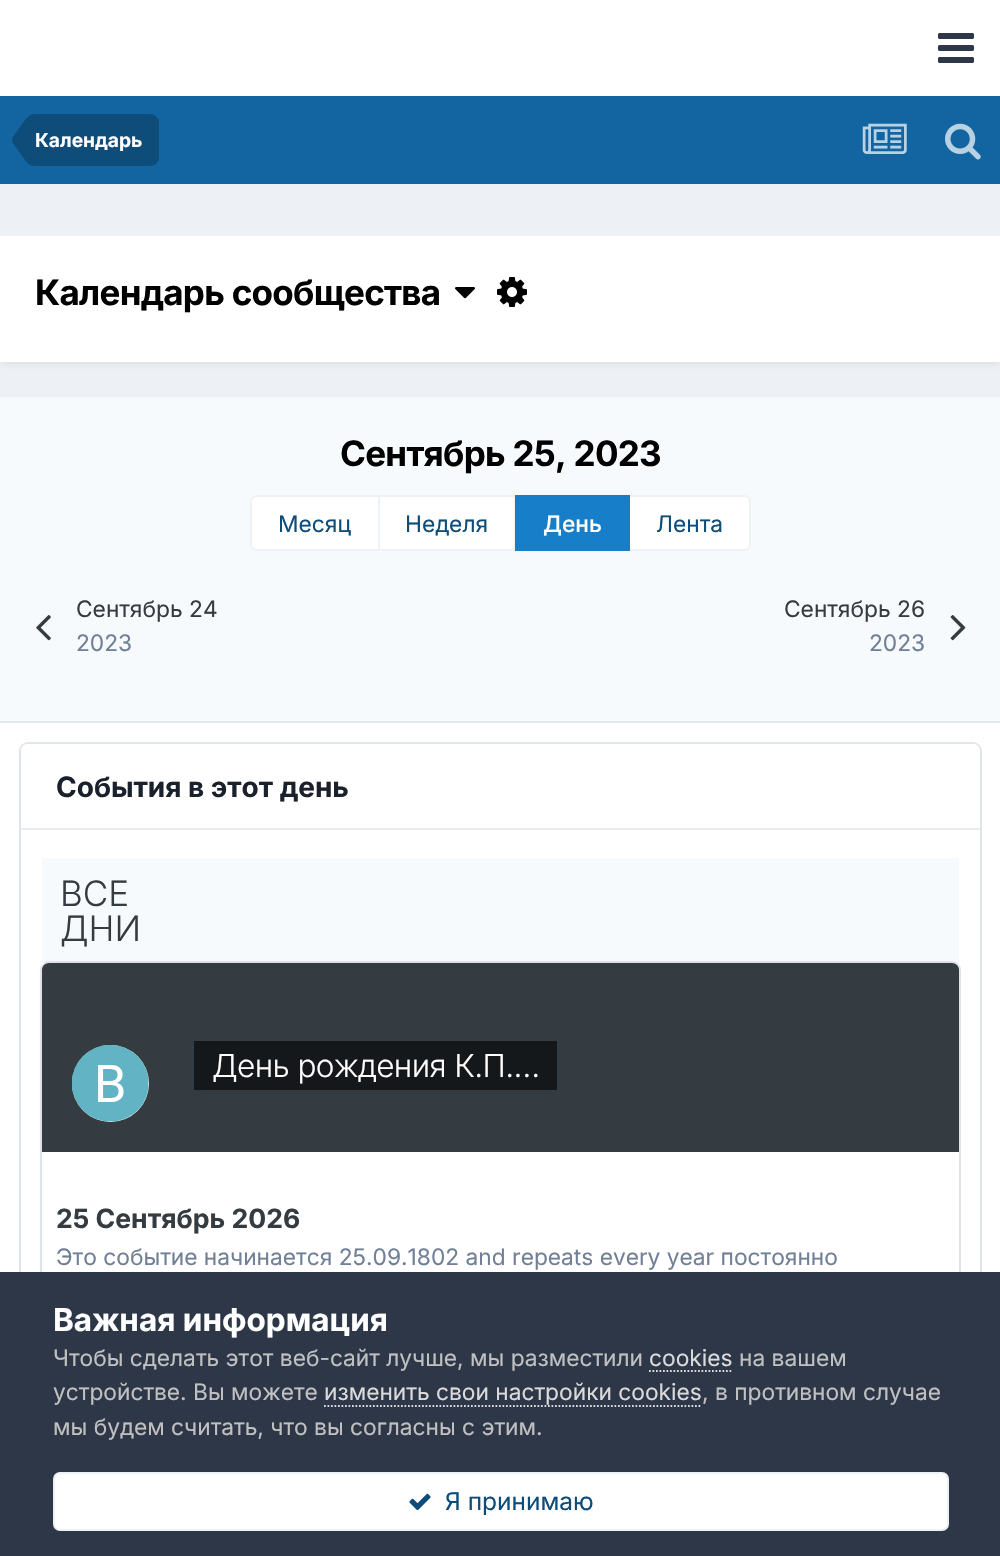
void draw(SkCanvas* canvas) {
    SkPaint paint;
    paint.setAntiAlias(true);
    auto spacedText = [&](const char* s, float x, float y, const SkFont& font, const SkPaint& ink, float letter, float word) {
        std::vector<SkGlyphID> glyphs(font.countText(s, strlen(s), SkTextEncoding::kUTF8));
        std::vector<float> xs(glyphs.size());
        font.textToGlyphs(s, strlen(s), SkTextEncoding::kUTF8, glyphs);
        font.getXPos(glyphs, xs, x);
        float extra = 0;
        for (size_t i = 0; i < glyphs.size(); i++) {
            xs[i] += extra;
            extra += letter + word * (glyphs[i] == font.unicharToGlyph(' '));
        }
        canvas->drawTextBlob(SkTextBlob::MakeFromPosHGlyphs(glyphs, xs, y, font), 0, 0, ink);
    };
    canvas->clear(0xFFEDF0F4);
    paint.setColor(0xFFFFFFFF);
    canvas->drawRect(SkRect::MakeXYWH(0, 0, 1000, 96), paint);
    canvas->drawImageRect(SkImages::DeferredFromEncodedData(SkData::MakeFromFileName("img1.png")), SkRect::MakeXYWH(938, 33, 36, 30), SkSamplingOptions());
    paint.setColor(0xFF1265A1);
    canvas->drawRect(SkRect::MakeXYWH(0, 96, 1000, 88), paint);
    paint.setColor(0xFF0E4C79);
    canvas->drawPath(SkPathBuilder().moveTo(35, 114).lineTo(150, 114).cubicTo(155, 114, 159, 118, 159, 123).lineTo(159, 157).cubicTo(159, 162, 155, 166, 150, 166).lineTo(35, 166).close().detach(), paint);
    canvas->drawPath(SkPathBuilder().moveTo(35, 140).lineTo(35, 166).cubicTo(31, 166, 27.5f, 164, 25, 160).lineTo(12.5f, 142.5f).lineTo(12, 140).close().moveTo(35, 140).lineTo(12, 140).lineTo(12.5f, 137.5f).lineTo(25, 120).cubicTo(27.5f, 116, 31, 114, 35, 114).close().detach(), paint);
    SkFont font1(fontMgr->matchFamilyStyle("Inter", SkFontStyle::Bold()), 19.25f);
    font1.setSubpixel(true);
    paint.setColor(0xFFFFFFFF);
    canvas->drawString("Календарь", 35, 147, font1, paint);
    canvas->drawImageRect(SkImages::DeferredFromEncodedData(SkData::MakeFromFileName("img2.png")), SkRect::MakeXYWH(862, 123, 45, 31), SkSamplingOptions());
    canvas->drawImageRect(SkImages::DeferredFromEncodedData(SkData::MakeFromFileName("img3.png")), SkRect::MakeXYWH(945, 123, 36, 37), SkSamplingOptions());
    paint.setColor(0x1A2D3748);
    paint.setMaskFilter(SkMaskFilter::MakeBlur(kNormal_SkBlurStyle, 3.5f));
    canvas->drawRect(SkRect::MakeXYWH(2, 242, 997, 122), paint);
    paint.setMaskFilter(nullptr);
    paint.setColor(0xFFFFFFFF);
    canvas->drawRect(SkRect::MakeXYWH(0, 236, 1000, 126), paint);
    SkFont font2(fontMgr->matchFamilyStyle("Inter", SkFontStyle::Bold()), 35);
    font2.setSubpixel(true);
    paint.setColor(0xFF000000);
    spacedText("Календарь сообщества", 35, 305, font2, paint, -0.7f, 0);
    canvas->drawImageRect(SkImages::DeferredFromEncodedData(SkData::MakeFromFileName("img4.png")), SkRect::MakeXYWH(455, 287, 20, 12), SkSamplingOptions());
    canvas->drawImageRect(SkImages::DeferredFromEncodedData(SkData::MakeFromFileName("img5.png")), SkRect::MakeXYWH(497, 277, 30, 30), SkSamplingOptions());
    paint.setColor(0xFFFFFFFF);
    canvas->drawRect(SkRect::MakeXYWH(0, 723, 1000, 549), paint);
    paint.setColor(0xFFF7FAFC);
    canvas->drawRect(SkRect::MakeXYWH(0, 397, 1000, 324), paint);
    paint.setColor(0xFFE3E8ED);
    canvas->drawRect(SkRect::MakeXYWH(0, 721, 1000, 2), paint);
    paint.setColor(0xFF000000);
    spacedText("Сентябрь 25, 2023", 340, 466, font2, paint, -0.7f, 0);
    paint.setColor(0xFFFFFFFF);
    canvas->drawPath(SkPathBuilder().moveTo(257, 495).lineTo(380, 495).lineTo(380, 551).lineTo(257, 551).cubicTo(253, 551, 250, 548, 250, 544).lineTo(250, 502).cubicTo(250, 498, 253, 495, 257, 495).close().detach(), paint);
    paint.setStyle(SkPaint::kStroke_Style);
    paint.setStrokeWidth(2);
    paint.setColor(0x120E4C79);
    canvas->drawPath(SkPathBuilder().moveTo(257, 496).lineTo(379, 496).lineTo(379, 550).lineTo(257, 550).cubicTo(253.5f, 550, 251, 547.5f, 251, 544).lineTo(251, 502).cubicTo(251, 498.5f, 253.5f, 496, 257, 496).close().detach(), paint);
    SkFont font3(fontMgr->matchFamilyStyle("Inter", SkFontStyle::Normal()), 22.75f);
    font3.setSubpixel(true);
    paint.setStyle(SkPaint::kFill_Style);
    paint.setColor(0xFF0E4C79);
    canvas->drawString("Месяц", 278, 532, font3, paint);
    paint.setColor(0xFFFFFFFF);
    canvas->drawRect(SkRect::MakeXYWH(379, 496, 136, 54), paint);
    paint.setStyle(SkPaint::kStroke_Style);
    paint.setColor(0xFFEDF2F5);
    canvas->drawRect(SkRect::MakeXYWH(379, 496, 136, 54), paint);
    paint.setStyle(SkPaint::kFill_Style);
    paint.setColor(0xFF0E4C79);
    canvas->drawString("Неделя", 405, 532, font3, paint);
    paint.setColor(0xFFFFFFFF);
    canvas->drawPath(SkPathBuilder().moveTo(628, 495).lineTo(744, 495).cubicTo(748, 495, 751, 498, 751, 502).lineTo(751, 544).cubicTo(751, 548, 748, 551, 744, 551).lineTo(628, 551).close().detach(), paint);
    paint.setStyle(SkPaint::kStroke_Style);
    paint.setColor(0x120E4C79);
    canvas->drawPath(SkPathBuilder().moveTo(629, 496).lineTo(744, 496).cubicTo(747.5f, 496, 750, 498.5f, 750, 502).lineTo(750, 544).cubicTo(750, 547.5f, 747.5f, 550, 744, 550).lineTo(629, 550).close().detach(), paint);
    paint.setStyle(SkPaint::kFill_Style);
    paint.setColor(0xFF177EC9);
    canvas->drawRect(SkRect::MakeXYWH(515, 495, 115, 56), paint);
    SkFont font4(fontMgr->matchFamilyStyle("Inter", SkFontStyle(500, SkFontStyle::kNormal_Width, SkFontStyle::kUpright_Slant)), 22.75f);
    font4.setSubpixel(true);
    paint.setColor(0xFFFFFFFF);
    canvas->drawString("День", 543, 532, font4, paint);
    paint.setColor(0xFF0E4C79);
    canvas->drawString("Лента", 656, 532, font3, paint);
    paint.setColor(0xFF353C41);
    canvas->drawString("Сентябрь 24", 76, 617, font3, paint);
    canvas->drawImageRect(SkImages::DeferredFromEncodedData(SkData::MakeFromFileName("img6.png")), SkRect::MakeXYWH(36, 615, 15, 26), SkSamplingOptions());
    paint.setColor(0xFF718096);
    canvas->drawString("2023", 76, 651, font3, paint);
    paint.setColor(0xFF353C41);
    canvas->drawString("Сентябрь 26", 784, 617, font3, paint);
    canvas->drawImageRect(SkImages::DeferredFromEncodedData(SkData::MakeFromFileName("img7.png")), SkRect::MakeXYWH(950, 615, 16, 26), SkSamplingOptions());
    paint.setColor(0xFF718096);
    canvas->drawString("2023", 869, 651, font3, paint);
    paint.setColor(0x1A2D3748);
    paint.setMaskFilter(SkMaskFilter::MakeBlur(kNormal_SkBlurStyle, 3.5f));
    canvas->drawRoundRect(SkRect::MakeXYWH(23, 749, 955, 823), 5, 5, paint);
    paint.setMaskFilter(nullptr);
    paint.setStyle(SkPaint::kStroke_Style);
    paint.setColor(0x33718096);
    canvas->drawRoundRect(SkRect::MakeXYWH(20, 743, 961, 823), 8, 8, paint);
    paint.setStyle(SkPaint::kFill_Style);
    paint.setColor(0xFFFFFFFF);
    canvas->drawRoundRect(SkRect::MakeXYWH(21, 744, 959, 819), 7, 7, paint);
    canvas->drawPath(SkPathBuilder().moveTo(28, 744).lineTo(973, 744).cubicTo(977, 744, 980, 747, 980, 751).lineTo(980, 830).lineTo(21, 830).lineTo(21, 751).cubicTo(21, 747, 24, 744, 28, 744).close().detach(), paint);
    paint.setColor(0xFFEAECEF);
    canvas->drawRect(SkRect::MakeXYWH(21, 828, 959, 2), paint);
    SkFont font5(fontMgr->matchFamilyStyle("Inter", SkFontStyle::Bold()), 28);
    font5.setSubpixel(true);
    paint.setColor(0xFF1A202C);
    canvas->drawString("События в этот день", 56, 797, font5, paint);
    paint.setColor(0xFFF7FAFC);
    canvas->drawRect(SkRect::MakeXYWH(42, 858, 917, 105), paint);
    SkFont font6(fontMgr->matchFamilyStyle("Inter", SkFontStyle(300, SkFontStyle::kNormal_Width, SkFontStyle::kUpright_Slant)), 35);
    font6.setSubpixel(true);
    paint.setColor(0xFF353C41);
    canvas->drawString("ВСЕ", 60, 906, font6, paint);
    canvas->drawString("ДНИ", 60, 941, font6, paint);
    paint.setColor(0x1A2D3748);
    paint.setMaskFilter(SkMaskFilter::MakeBlur(kNormal_SkBlurStyle, 3.5f));
    canvas->drawRoundRect(SkRect::MakeXYWH(44, 968, 913, 556), 5, 5, paint);
    paint.setMaskFilter(nullptr);
    paint.setStyle(SkPaint::kStroke_Style);
    paint.setColor(0x33718096);
    canvas->drawRoundRect(SkRect::MakeXYWH(41, 962, 919, 561), 8, 8, paint);
    paint.setStyle(SkPaint::kFill_Style);
    paint.setColor(0xFFFFFFFF);
    canvas->drawRoundRect(SkRect::MakeXYWH(42, 963, 917, 560), 7, 7, paint);
    paint.setColor(0xFF353C41);
    canvas->drawPath(SkPathBuilder().moveTo(49, 963).lineTo(952, 963).cubicTo(956, 963, 959, 966, 959, 970).lineTo(959, 1152).lineTo(42, 1152).lineTo(42, 970).cubicTo(42, 966, 45, 963, 49, 963).close().detach(), paint);
    paint.setColor(0xFFFFFFFF);
    canvas->drawCircle(110.5f, 1083.5f, 38.5f, paint);
    canvas->drawImageRect(SkImages::DeferredFromEncodedData(SkData::MakeFromFileName("img8.png")), SkRect::MakeXYWH(72, 1045, 77, 77), SkSamplingOptions());
    paint.setColor(0xFF15181A);
    canvas->drawRect(SkRect::MakeXYWH(194, 1041, 363, 49), paint);
    SkFont font7(fontMgr->matchFamilyStyle("Inter", SkFontStyle(300, SkFontStyle::kNormal_Width, SkFontStyle::kUpright_Slant)), 31.5f);
    font7.setSubpixel(true);
    paint.setColor(0xFFFFFFFF);
    spacedText("День рождения К.П.…", 212, 1077, font7, paint, -0.6f, 0);
    SkFont font8(fontMgr->matchFamilyStyle("Inter", SkFontStyle::Bold()), 26.6f);
    font8.setSubpixel(true);
    paint.setColor(0xFF353C41);
    canvas->drawString("25 Сентябрь 2026", 56, 1228, font8, paint);
    paint.setColor(0xFF718096);
    canvas->drawString("Это событие начинается 25.09.1802 and repeats every year постоянно", 56, 1265, font3, paint);
    paint.setColor(0xFF2D3748);
    canvas->drawRect(SkRect::MakeXYWH(0, 1272, 1000, 284), paint);
    SkFont font9(fontMgr->matchFamilyStyle("Inter", SkFontStyle::Bold()), 31.5f);
    font9.setSubpixel(true);
    paint.setColor(0xFFFFFFFF);
    canvas->drawString("Важная информация", 53, 1331, font9, paint);
    paint.setColor(0xFFC0C0C0);
    canvas->drawString("Чтобы сделать этот веб-сайт лучше, мы разместили", 53, 1366, font3, paint);
    paint.setColor(0xFFDADADA);
    canvas->drawString("cookies", 649, 1366, font3, paint);
    paint.setStyle(SkPaint::kStroke_Style);
    paint.setStrokeWidth(1.8f);
    paint.setPathEffect(SkDashPathEffect::Make({{1.75f, 1.75f}}, 0));
    canvas->drawPath(SkPathBuilder().moveTo(649, 1371).lineTo(733, 1371).detach(), paint);
    paint.setPathEffect(nullptr);
    paint.setStyle(SkPaint::kFill_Style);
    paint.setColor(0xFFC0C0C0);
    canvas->drawString("на вашем", 739, 1366, font3, paint);
    canvas->drawString("устройстве. Вы можете", 53, 1400, font3, paint);
    paint.setColor(0xFFDADADA);
    canvas->drawString("изменить свои настройки cookies", 324, 1400, font3, paint);
    paint.setStyle(SkPaint::kStroke_Style);
    paint.setPathEffect(SkDashPathEffect::Make({{1.75f, 1.75f}}, 0));
    canvas->drawPath(SkPathBuilder().moveTo(324, 1406).lineTo(702, 1406).detach(), paint);
    paint.setPathEffect(nullptr);
    paint.setStyle(SkPaint::kFill_Style);
    paint.setColor(0xFFC0C0C0);
    canvas->drawString(", в противном случае", 702, 1400, font3, paint);
    canvas->drawString("мы будем считать, что вы согласны с этим.", 53, 1435, font3, paint);
    paint.setColor(0xFFFFFFFF);
    canvas->drawRoundRect(SkRect::MakeXYWH(53, 1472, 896, 59), 7, 7, paint);
    paint.setStyle(SkPaint::kStroke_Style);
    paint.setStrokeWidth(2);
    paint.setColor(0x120E4C79);
    canvas->drawRoundRect(SkRect::MakeXYWH(54, 1473, 894, 57), 6, 6, paint);
    canvas->drawImageRect(SkImages::DeferredFromEncodedData(SkData::MakeFromFileName("img9.png")), SkRect::MakeXYWH(409, 1493, 22, 17), SkSamplingOptions());
    SkFont font10(fontMgr->matchFamilyStyle("Inter", SkFontStyle::Normal()), 24.5f);
    font10.setSubpixel(true);
    paint.setStyle(SkPaint::kFill_Style);
    paint.setColor(0xFF0E4C79);
    canvas->drawString("Я принимаю", 445, 1510, font10, paint);
}
